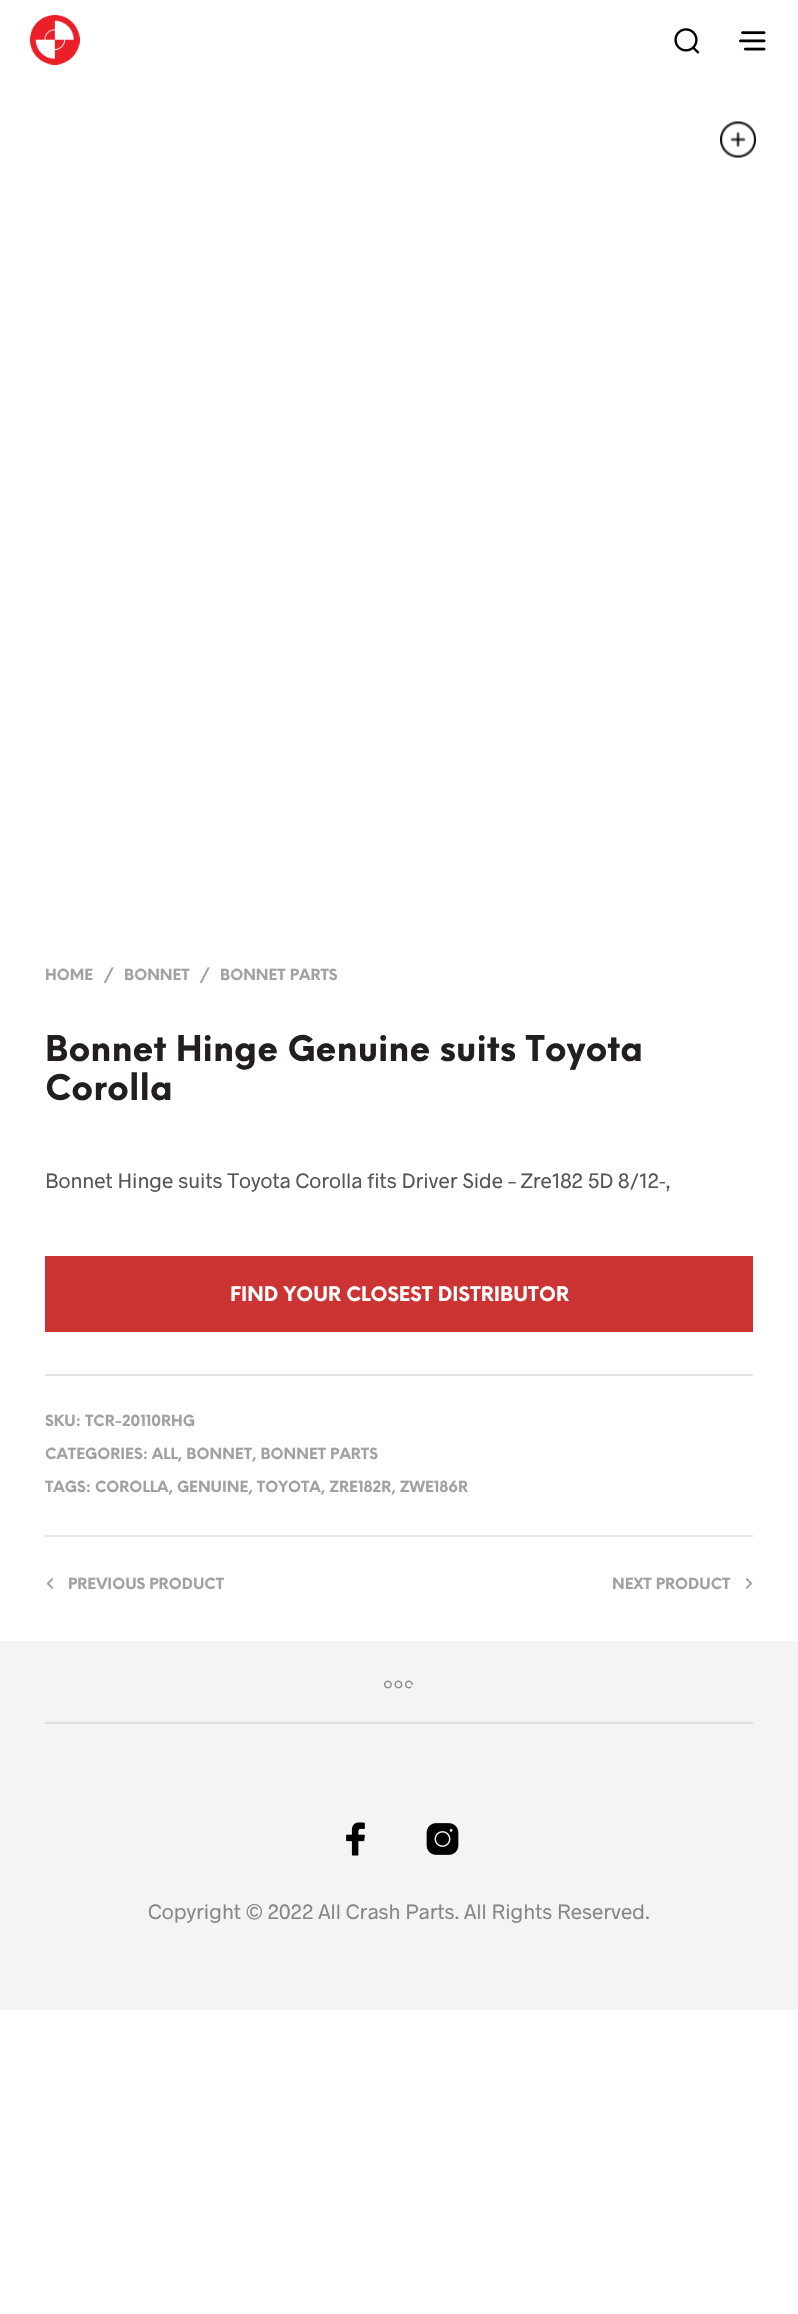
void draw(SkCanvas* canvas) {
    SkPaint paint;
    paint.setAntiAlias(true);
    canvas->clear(0xFFFFFFFF);
    canvas->drawImageRect(SkImages::DeferredFromEncodedData(SkData::MakeFromFileName("img1.png")), SkRect::MakeXYWH(30, 15, 50, 50), SkSamplingOptions());
    canvas->drawImageRect(SkImages::DeferredFromEncodedData(SkData::MakeFromFileName("img2.png")), SkRect::MakeXYWH(674, 28, 26, 26), SkSamplingOptions());
    canvas->drawImageRect(SkImages::DeferredFromEncodedData(SkData::MakeFromFileName("img3.png")), SkRect::MakeXYWH(739, 31, 27, 20), SkSamplingOptions());
    canvas->drawImageRect(SkImages::DeferredFromEncodedData(SkData::MakeFromFileName("img4.png")), SkRect::MakeXYWH(720, 121, 36, 37), SkSamplingOptions());
    SkFont font1(fontMgr->matchFamilyStyle("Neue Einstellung", SkFontStyle::Bold()), 15);
    font1.setSubpixel(true);
    paint.setColor(0xFFA1A1A1);
    canvas->drawString("HOME", 45, 980, font1, paint);
    canvas->drawString("/", 104, 980, font1, paint);
    canvas->drawString("BONNET", 124, 980, font1, paint);
    canvas->drawString("/", 200, 980, font1, paint);
    canvas->drawString("BONNET PARTS", 220, 980, font1, paint);
    SkFont font2(fontMgr->matchFamilyStyle("Neue Einstellung", SkFontStyle::Bold()), 34.6f);
    font2.setSubpixel(true);
    paint.setColor(0xFF231F20);
    canvas->drawString("Bonnet Hinge Genuine suits Toyota", 45, 1061, font2, paint);
    canvas->drawString("Corolla", 45, 1100, font2, paint);
    SkFont font3(fontMgr->matchFamilyStyle("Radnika", SkFontStyle::Normal()), 21);
    font3.setSubpixel(true);
    paint.setColor(0xFF545454);
    canvas->drawString("Bonnet Hinge suits Toyota Corolla fits Driver Side – Zre182 5D 8/12-,", 45, 1188, font3, paint);
    paint.setColor(0xFFCC3333);
    canvas->drawRect(SkRect::MakeXYWH(45, 1256, 708, 76), paint);
    SkFont font4(fontMgr->matchFamilyStyle("Neue Einstellung", SkFontStyle::Bold()), 19.5f);
    font4.setSubpixel(true);
    paint.setColor(0xFFFFFFFF);
    canvas->drawString("FIND YOUR CLOSEST DISTRIBUTOR", 230, 1301, font4, paint);
    paint.setColor(0xFFE5E5E5);
    canvas->drawRect(SkRect::MakeXYWH(45, 1374, 708, 2), paint);
    paint.setColor(0xFFA1A1A1);
    canvas->drawString("SKU: TCR-20110RHG", 45, 1426, font1, paint);
    canvas->drawString("CATEGORIES: ALL, BONNET, BONNET PARTS", 45, 1459, font1, paint);
    canvas->drawString("TAGS: COROLLA, GENUINE, TOYOTA, ZRE182R, ZWE186R", 45, 1492, font1, paint);
    paint.setColor(0xFFE5E5E5);
    canvas->drawRect(SkRect::MakeXYWH(45, 1535, 708, 2), paint);
    canvas->drawImageRect(SkImages::DeferredFromEncodedData(SkData::MakeFromFileName("img5.png")), SkRect::MakeXYWH(46, 1578, 8, 11), SkSamplingOptions());
    paint.setColor(0xFFA1A1A1);
    canvas->drawString("PREVIOUS PRODUCT", 68, 1589, font1, paint);
    canvas->drawString("NEXT PRODUCT", 612, 1589, font1, paint);
    canvas->drawImageRect(SkImages::DeferredFromEncodedData(SkData::MakeFromFileName("img6.png")), SkRect::MakeXYWH(745, 1578, 8, 11), SkSamplingOptions());
    paint.setColor(0xFFF4F4F4);
    canvas->drawRect(SkRect::MakeXYWH(0, 1641, 798, 369), paint);
    paint.setColor(0xFFDDDDDD);
    canvas->drawRect(SkRect::MakeXYWH(45, 1722, 708, 2), paint);
    canvas->drawImageRect(SkImages::DeferredFromEncodedData(SkData::MakeFromFileName("img7.png")), SkRect::MakeXYWH(384, 1680, 29, 9), SkSamplingOptions());
    canvas->drawImageRect(SkImages::DeferredFromEncodedData(SkData::MakeFromFileName("img8.png")), SkRect::MakeXYWH(346, 1822, 19, 34), SkSamplingOptions());
    canvas->drawImageRect(SkImages::DeferredFromEncodedData(SkData::MakeFromFileName("img9.png")), SkRect::MakeXYWH(426, 1823, 33, 32), SkSamplingOptions());
    paint.setColor(0xFF868686);
    canvas->drawString("Copyright © 2022 All Crash Parts. All Rights Reserved.", 148, 1919, font3, paint);
}
